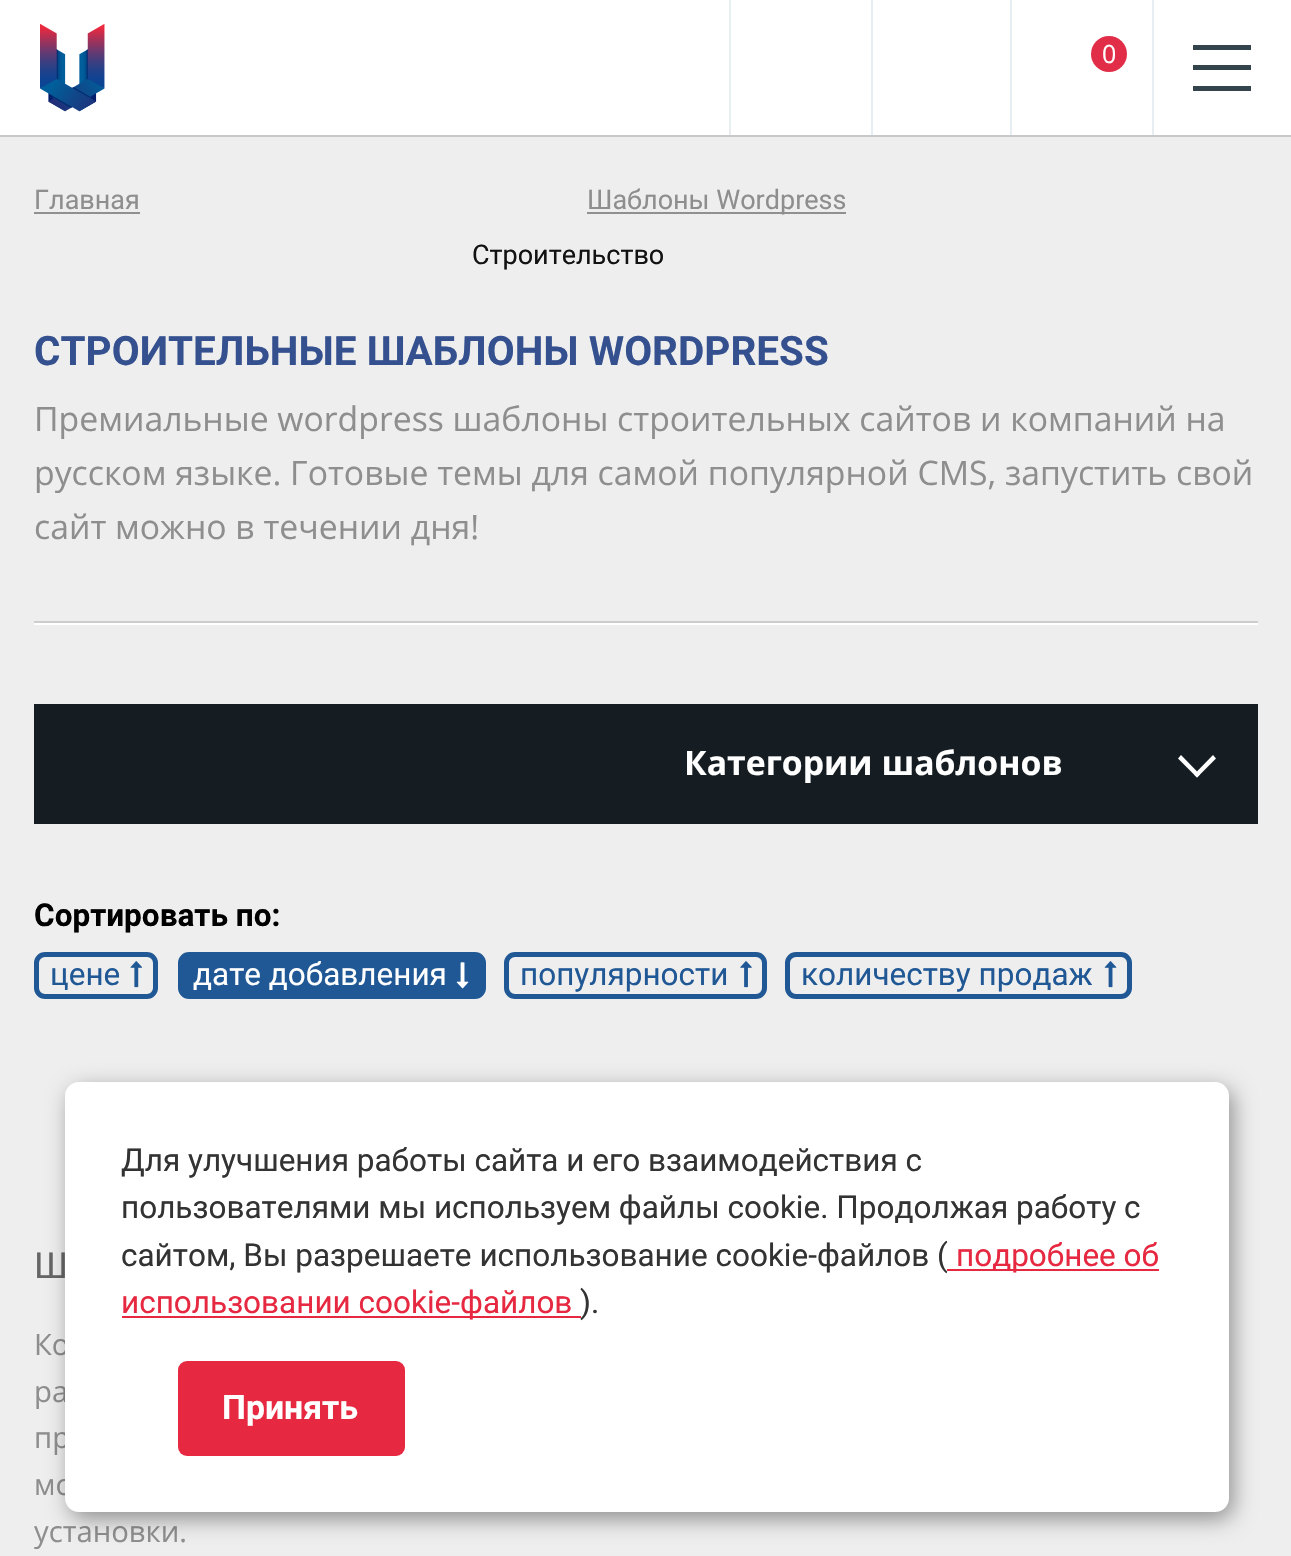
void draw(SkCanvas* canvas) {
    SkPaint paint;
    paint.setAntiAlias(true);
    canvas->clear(0xFFEEEEEE);
    paint.setStyle(SkPaint::kStroke_Style);
    paint.setStrokeWidth(2);
    paint.setColor(0xFFC8C8C8);
    canvas->drawRect(SkRect::MakeXYWH(-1, -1, 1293, 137), paint);
    paint.setStyle(SkPaint::kFill_Style);
    paint.setColor(0xFFFFFFFF);
    canvas->drawRect(SkRect::MakeXYWH(0, 0, 1291, 135), paint);
    canvas->drawImageRect(SkImages::DeferredFromEncodedData(SkData::MakeFromFileName("img1.png")), SkRect::MakeXYWH(40, 23, 65, 89), SkSamplingOptions());
    paint.setColor(0xFFE6EEF2);
    canvas->drawRect(SkRect::MakeXYWH(729, 0, 2, 135), paint);
    canvas->drawRect(SkRect::MakeXYWH(871, 0, 2, 135), paint);
    canvas->drawRect(SkRect::MakeXYWH(1010, 0, 2, 135), paint);
    paint.setColor(0xFFE12D47);
    canvas->drawCircle(1109, 54, 18, paint);
    SkFont font1(fontMgr->matchFamilyStyle("Open Sans", SkFontStyle::Normal()), 25);
    font1.setSubpixel(true);
    paint.setColor(0xFFFFFFFF);
    canvas->drawString("0", 1102, 63, font1, paint);
    paint.setColor(0xFFE6EEF2);
    canvas->drawRect(SkRect::MakeXYWH(1152, 0, 2, 135), paint);
    paint.setColor(0xFF33444C);
    canvas->drawRect(SkRect::MakeXYWH(1193, 45, 58, 5), paint);
    canvas->drawRect(SkRect::MakeXYWH(1193, 65, 58, 5), paint);
    canvas->drawRect(SkRect::MakeXYWH(1193, 86, 58, 5), paint);
    SkFont font2(fontMgr->matchFamilyStyle("Roboto", SkFontStyle::Normal()), 27);
    font2.setSubpixel(true);
    paint.setColor(0xFF8E8E8E);
    canvas->drawString("Главная", 34, 209, font2, paint);
    paint.setColor(0xFF909090);
    canvas->drawRect(SkRect::MakeXYWH(34, 212, 106, 2), paint);
    canvas->drawRect(SkRect::MakeXYWH(587, 212, 259, 2), paint);
    paint.setColor(0xFF8E8E8E);
    canvas->drawString("Шаблоны Wordpress", 587, 209, font2, paint);
    paint.setColor(0xFF121212);
    canvas->drawString("Строительство", 472, 264, font2, paint);
    SkFont font3(fontMgr->matchFamilyStyle("Roboto", SkFontStyle::Bold()), 40.5f);
    font3.setSubpixel(true);
    paint.setColor(0xFF34508F);
    canvas->drawString("СТРОИТЕЛЬНЫЕ ШАБЛОНЫ WORDPRESS", 34, 365, font3, paint);
    SkFont font4(fontMgr->matchFamilyStyle("Open Sans", SkFontStyle::Normal()), 33.75f);
    font4.setSubpixel(true);
    paint.setColor(0xFF8E8E8E);
    canvas->drawString("Премиальные wordpress шаблоны строительных сайтов и компаний на", 34, 431, font4, paint);
    canvas->drawString("русском языке. Готовые темы для самой популярной CMS, запустить свой", 34, 485, font4, paint);
    canvas->drawString("сайт можно в течении дня!", 34, 539, font4, paint);
    paint.setColor(0xFFCDCDCD);
    canvas->drawRect(SkRect::MakeXYWH(34, 621, 1224, 2), paint);
    paint.setColor(0xFFFFFFFF);
    canvas->drawRect(SkRect::MakeXYWH(34, 623, 1224, 2), paint);
    paint.setColor(0xFF151D23);
    canvas->drawRect(SkRect::MakeXYWH(34, 704, 1224, 120), paint);
    SkFont font5(fontMgr->matchFamilyStyle("Open Sans", SkFontStyle::Bold()), 33.75f);
    font5.setSubpixel(true);
    paint.setColor(0xFFFFFFFF);
    canvas->drawString("Категории шаблонов", 684, 775, font5, paint);
    canvas->drawPath(SkPathBuilder().moveTo(1213, 755).lineTo(1216, 758.5f).lineTo(1197, 777.5f).lineTo(1194, 774.5f).close().detach(), paint);
    canvas->drawPath(SkPathBuilder().moveTo(1181, 755).lineTo(1200, 774.5f).lineTo(1197, 777.5f).lineTo(1178, 758.5f).close().detach(), paint);
    SkFont font6(fontMgr->matchFamilyStyle("Roboto", SkFontStyle::Bold()), 31.5f);
    font6.setSubpixel(true);
    paint.setColor(0xFF000000);
    canvas->drawString("Сортировать по:", 34, 926, font6, paint);
    paint.setStyle(SkPaint::kStroke_Style);
    paint.setStrokeWidth(5);
    paint.setColor(0xFF205895);
    canvas->drawRoundRect(SkRect::MakeXYWH(36.5f, 954.5f, 119, 42), 8.5f, 8.5f, paint);
    SkFont font7(fontMgr->matchFamilyStyle("Roboto", SkFontStyle::Normal()), 31.5f);
    font7.setSubpixel(true);
    paint.setStyle(SkPaint::kFill_Style);
    canvas->drawString("цене", 50, 985, font7, paint);
    canvas->drawImageRect(SkImages::DeferredFromEncodedData(SkData::MakeFromFileName("img2.png")), SkRect::MakeXYWH(130, 961, 12, 27), SkSamplingOptions());
    canvas->drawRoundRect(SkRect::MakeXYWH(180.5f, 954.5f, 303, 42), 8.5f, 8.5f, paint);
    paint.setStyle(SkPaint::kStroke_Style);
    canvas->drawRoundRect(SkRect::MakeXYWH(180.5f, 954.5f, 303, 42), 8.5f, 8.5f, paint);
    paint.setStyle(SkPaint::kFill_Style);
    paint.setColor(0xFFFFFFFF);
    canvas->drawString("дате добавления", 193, 985, font7, paint);
    canvas->drawImageRect(SkImages::DeferredFromEncodedData(SkData::MakeFromFileName("img3.png")), SkRect::MakeXYWH(456, 962, 13, 27), SkSamplingOptions());
    paint.setStyle(SkPaint::kStroke_Style);
    paint.setColor(0xFF205895);
    canvas->drawRoundRect(SkRect::MakeXYWH(506.5f, 954.5f, 258, 42), 8.5f, 8.5f, paint);
    paint.setStyle(SkPaint::kFill_Style);
    canvas->drawString("популярности", 520, 985, font7, paint);
    canvas->drawImageRect(SkImages::DeferredFromEncodedData(SkData::MakeFromFileName("img4.png")), SkRect::MakeXYWH(740, 961, 12, 27), SkSamplingOptions());
    paint.setStyle(SkPaint::kStroke_Style);
    canvas->drawRoundRect(SkRect::MakeXYWH(787.5f, 954.5f, 342, 42), 8.5f, 8.5f, paint);
    paint.setStyle(SkPaint::kFill_Style);
    canvas->drawString("количеству продаж", 801, 985, font7, paint);
    canvas->drawImageRect(SkImages::DeferredFromEncodedData(SkData::MakeFromFileName("img5.png")), SkRect::MakeXYWH(1104, 961, 13, 27), SkSamplingOptions());
    SkFont font8(fontMgr->matchFamilyStyle("Roboto", SkFontStyle::Normal()), 36);
    font8.setSubpixel(true);
    paint.setColor(0xFF666666);
    canvas->drawString("Ш", 34, 1278, font8, paint);
    SkFont font9(fontMgr->matchFamilyStyle("Open Sans", SkFontStyle::Normal()), 29.25f);
    font9.setSubpixel(true);
    paint.setColor(0xFF8E8E8E);
    canvas->drawString("Ко", 34, 1355, font9, paint);
    canvas->drawString("ра", 34, 1402, font9, paint);
    canvas->drawString("пр", 34, 1448, font9, paint);
    canvas->drawString("мо", 34, 1495, font9, paint);
    canvas->drawString("установки.", 34, 1542, font9, paint);
    paint.setColor(0x66000000);
    paint.setMaskFilter(SkMaskFilter::MakeBlur(kNormal_SkBlurStyle, 11));
    canvas->drawRoundRect(SkRect::MakeXYWH(70, 1089, 1163, 430), 14, 14, paint);
    paint.setMaskFilter(nullptr);
    paint.setColor(0xFFFFFFFF);
    canvas->drawRoundRect(SkRect::MakeXYWH(65, 1082, 1164, 430), 14, 14, paint);
    paint.setColor(0xFF333333);
    canvas->drawString("Для улучшения работы сайта и его взаимодействия с", 121, 1171, font7, paint);
    canvas->drawString("пользователями мы используем файлы cookie. Продолжая работу с", 121, 1218, font7, paint);
    canvas->drawString("сайтом, Вы разрешаете использование cookie-файлов (", 121, 1266, font7, paint);
    paint.setColor(0xFFE62840);
    canvas->drawRect(SkRect::MakeXYWH(947, 1269, 212, 2), paint);
    canvas->drawString("подробнее об", 956, 1266, font7, paint);
    canvas->drawRect(SkRect::MakeXYWH(122, 1316, 459, 2), paint);
    canvas->drawString("использовании cookie-файлов", 121, 1313, font7, paint);
    paint.setColor(0xFF333333);
    canvas->drawString(").", 580, 1313, font7, paint);
    paint.setColor(0xFFE62840);
    canvas->drawRoundRect(SkRect::MakeXYWH(178, 1361, 227, 95), 9, 9, paint);
    SkFont font10(fontMgr->matchFamilyStyle("Roboto", SkFontStyle::Bold()), 33.75f);
    font10.setSubpixel(true);
    paint.setColor(0xFFFFFFFF);
    canvas->drawString("Принять", 222, 1419, font10, paint);
}
